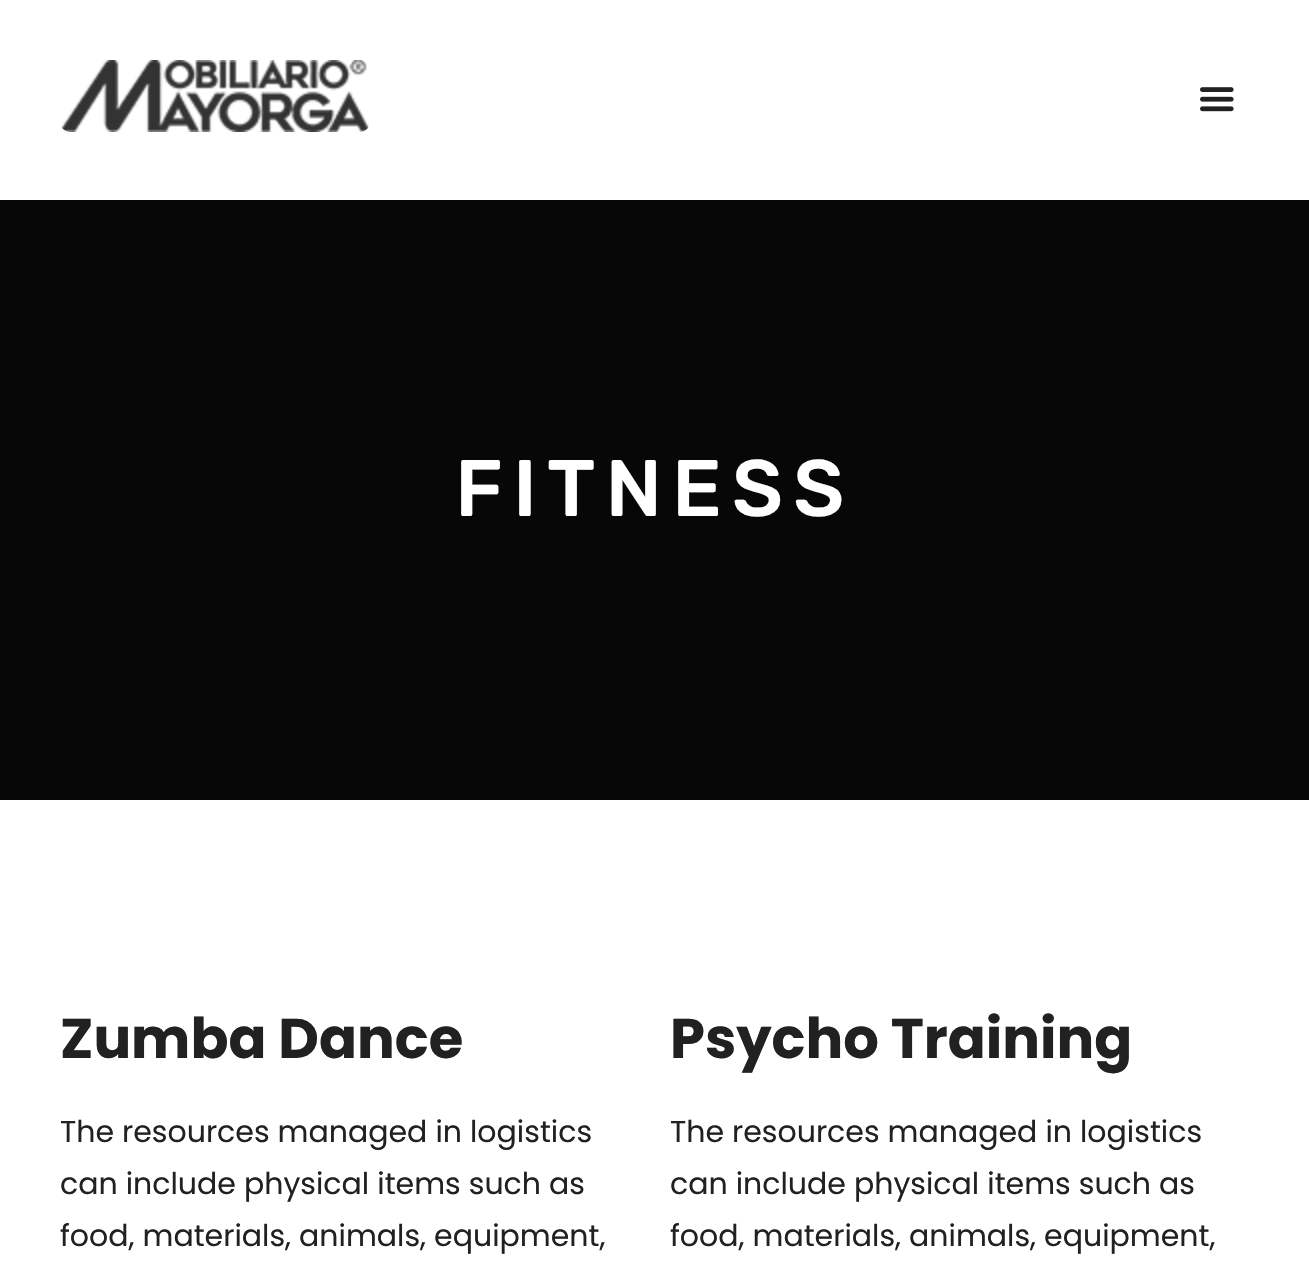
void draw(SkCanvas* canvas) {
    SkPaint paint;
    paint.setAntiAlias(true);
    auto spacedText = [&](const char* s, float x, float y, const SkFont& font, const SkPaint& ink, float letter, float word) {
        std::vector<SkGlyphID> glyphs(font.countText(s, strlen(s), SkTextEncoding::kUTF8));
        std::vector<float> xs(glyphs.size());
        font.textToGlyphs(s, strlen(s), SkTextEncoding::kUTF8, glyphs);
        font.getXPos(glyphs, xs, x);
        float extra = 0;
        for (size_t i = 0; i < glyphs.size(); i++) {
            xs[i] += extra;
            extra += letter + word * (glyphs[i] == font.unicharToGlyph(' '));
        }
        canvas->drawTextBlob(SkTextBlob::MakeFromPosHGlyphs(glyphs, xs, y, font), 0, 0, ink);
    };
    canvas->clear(0xFFFFFFFF);
    canvas->drawImageRect(SkImages::DeferredFromEncodedData(SkData::MakeFromFileName("img1.png")), SkRect::MakeXYWH(61, 60, 308, 72), SkSamplingOptions());
    canvas->drawImageRect(SkImages::DeferredFromEncodedData(SkData::MakeFromFileName("img2.png")), SkRect::MakeXYWH(1200, 87, 34, 25), SkSamplingOptions());
    paint.setColor(0xFF070707);
    canvas->drawRect(SkRect::MakeXYWH(0, 200, 1309, 600), paint);
    SkFont font1(fontMgr->matchFamilyStyle("Rubik", SkFontStyle(500, SkFontStyle::kNormal_Width, SkFontStyle::kUpright_Slant)), 80);
    font1.setSubpixel(true);
    paint.setColor(0xFFFFFFFF);
    spacedText("FITNESS", 455, 516, font1, paint, 10, 0);
    SkFont font2(fontMgr->matchFamilyStyle("Poppins", SkFontStyle::Bold()), 56);
    font2.setSubpixel(true);
    paint.setColor(0xFF212121);
    canvas->drawString("Zumba Dance", 60, 1058, font2, paint);
    SkFont font3(fontMgr->matchFamilyStyle("Poppins", SkFontStyle::Normal()), 30);
    font3.setSubpixel(true);
    canvas->drawString("The resources managed in logistics", 60, 1142, font3, paint);
    canvas->drawString("can include physical items such as", 60, 1194, font3, paint);
    canvas->drawString("food, materials, animals, equipment,", 60, 1246, font3, paint);
    canvas->drawString("Psycho Training", 670, 1058, font2, paint);
    canvas->drawString("The resources managed in logistics", 670, 1142, font3, paint);
    canvas->drawString("can include physical items such as", 670, 1194, font3, paint);
    canvas->drawString("food, materials, animals, equipment,", 670, 1246, font3, paint);
}
